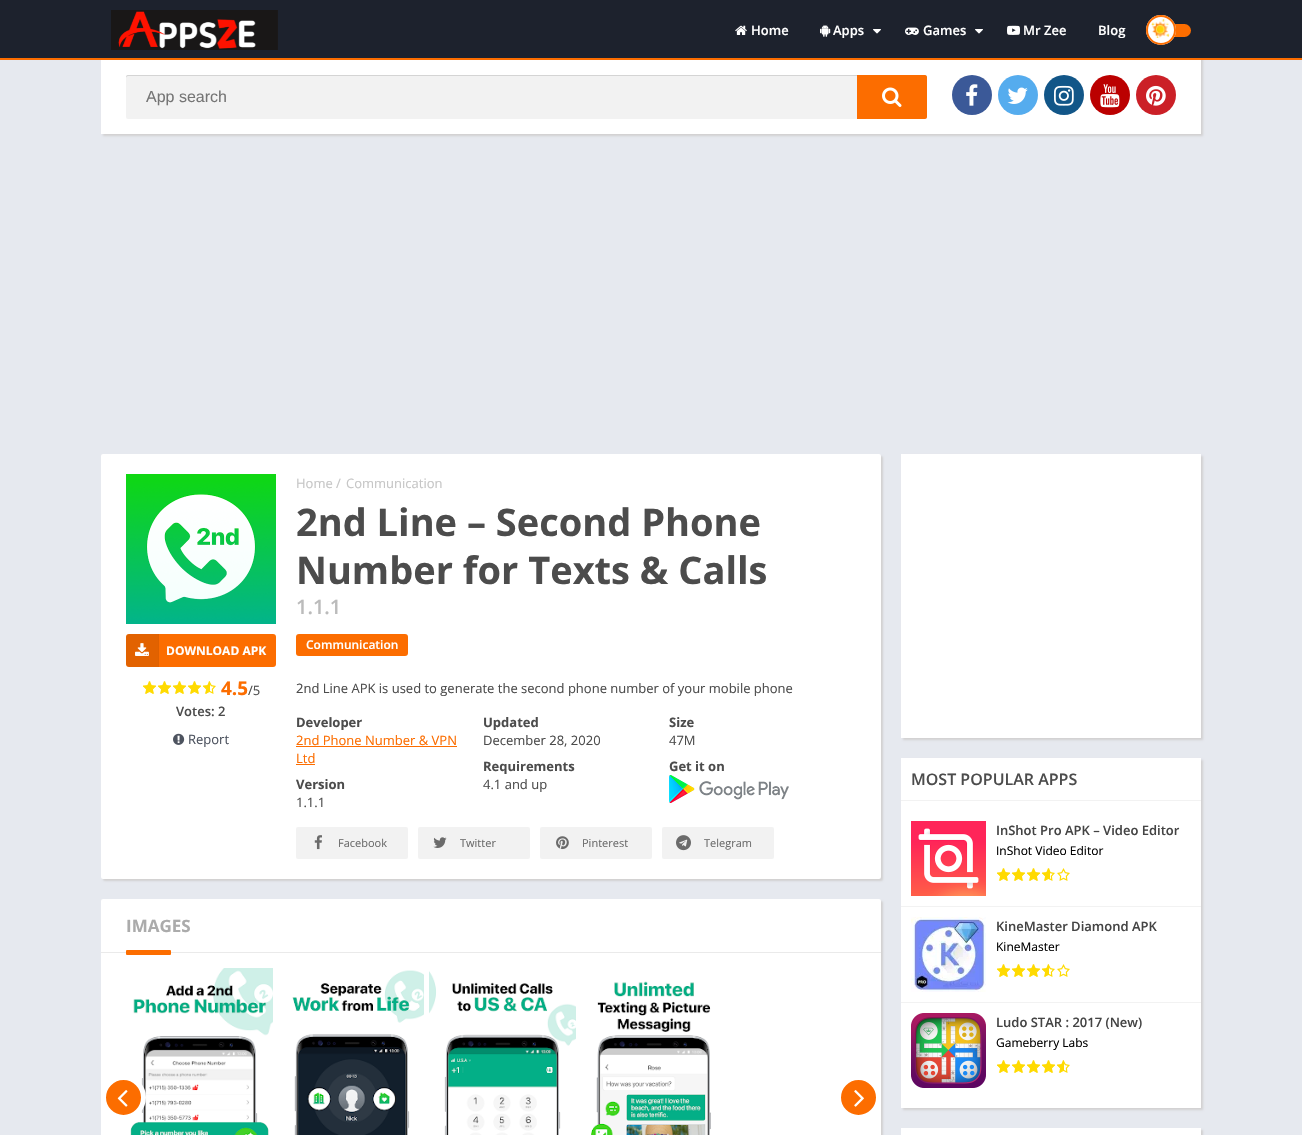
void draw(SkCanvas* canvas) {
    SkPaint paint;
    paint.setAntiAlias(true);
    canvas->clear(0xFFE6E9EF);
    paint.setColor(0xFFD2D1D1);
    paint.setMaskFilter(SkMaskFilter::MakeBlur(kNormal_SkBlurStyle, 1));
    canvas->drawRect(SkRect::MakeXYWH(103, 2, 1100, 134), paint);
    paint.setMaskFilter(nullptr);
    paint.setColor(0xFF1D222D);
    canvas->drawRect(SkRect::MakeXYWH(0, 0, 1302, 58), paint);
    paint.setColor(0xFFFC6D00);
    canvas->drawRect(SkRect::MakeXYWH(0, 58, 1302, 2), paint);
    canvas->drawImageRect(SkImages::DeferredFromEncodedData(SkData::MakeFromFileName("img1.png")), SkRect::MakeXYWH(111, 10, 167, 40), SkSamplingOptions());
    canvas->drawImageRect(SkImages::DeferredFromEncodedData(SkData::MakeFromFileName("img2.png")), SkRect::MakeXYWH(735, 25, 12, 10), SkSamplingOptions());
    SkFont font1(fontMgr->matchFamilyStyle("Open Sans", SkFontStyle(600, SkFontStyle::kNormal_Width, SkFontStyle::kUpright_Slant)), 13);
    font1.setSubpixel(true);
    paint.setColor(0xFFFFFFFF);
    canvas->drawString("Home", 751, 35, font1, paint);
    canvas->drawImageRect(SkImages::DeferredFromEncodedData(SkData::MakeFromFileName("img3.png")), SkRect::MakeXYWH(820, 24, 11, 13), SkSamplingOptions());
    canvas->drawString("Apps", 833, 35, font1, paint);
    canvas->drawImageRect(SkImages::DeferredFromEncodedData(SkData::MakeFromFileName("img4.png")), SkRect::MakeXYWH(873, 29, 8, 5), SkSamplingOptions());
    canvas->drawImageRect(SkImages::DeferredFromEncodedData(SkData::MakeFromFileName("img5.png")), SkRect::MakeXYWH(905, 27, 14, 8), SkSamplingOptions());
    canvas->drawString("Games", 923, 35, font1, paint);
    canvas->drawImageRect(SkImages::DeferredFromEncodedData(SkData::MakeFromFileName("img4.png")), SkRect::MakeXYWH(975, 29, 8, 5), SkSamplingOptions());
    canvas->drawImageRect(SkImages::DeferredFromEncodedData(SkData::MakeFromFileName("img6.png")), SkRect::MakeXYWH(1007, 25, 13, 10), SkSamplingOptions());
    canvas->drawString("Mr Zee", 1023, 35, font1, paint);
    canvas->drawString("Blog", 1098, 35, font1, paint);
    paint.setColor(0xFFFC6D00);
    canvas->drawRoundRect(SkRect::MakeXYWH(1146, 24, 45, 13), 6.5f, 6.5f, paint);
    paint.setColor(0xFFFFFFFF);
    canvas->drawCircle(1161, 30, 15, paint);
    canvas->drawImageRect(SkImages::DeferredFromEncodedData(SkData::MakeFromFileName("img7.png")), SkRect::MakeXYWH(1151, 19, 19, 19), SkSamplingOptions());
    paint.setStyle(SkPaint::kStroke_Style);
    paint.setStrokeWidth(2);
    paint.setColor(0xFFFC6D00);
    canvas->drawCircle(1161, 30, 14, paint);
    paint.setStyle(SkPaint::kFill_Style);
    paint.setColor(0xFFFFFFFF);
    canvas->drawRect(SkRect::MakeXYWH(101, 60, 1100, 74), paint);
    paint.setColor(0xFFF2F2F2);
    canvas->drawRoundRect(SkRect::MakeXYWH(126, 75, 801, 44), 2, 2, paint);
    paint.setColor(0xFFD4D4D4);
    canvas->drawPath(SkPathBuilder().moveTo(128, 76).lineTo(925, 76).cubicTo(926, 76, 927, 77, 927, 78).cubicTo(927, 77, 927, 75, 925, 75).lineTo(128, 75).cubicTo(126, 75, 126, 77, 126, 78).cubicTo(126, 77, 127, 76, 128, 76).close().detach(), paint);
    SkFont font2(fontMgr->matchFamilyStyle("Liberation Sans", SkFontStyle::Normal()), 16);
    font2.setSubpixel(true);
    paint.setColor(0xFF757575);
    canvas->drawString("App search", 146, 102, font2, paint);
    paint.setColor(0xFFFC6D00);
    canvas->drawPath(SkPathBuilder().moveTo(857, 75).lineTo(925, 75).cubicTo(926, 75, 927, 76, 927, 77).lineTo(927, 117).cubicTo(927, 118, 926, 119, 925, 119).lineTo(857, 119).close().detach(), paint);
    canvas->drawImageRect(SkImages::DeferredFromEncodedData(SkData::MakeFromFileName("img8.png")), SkRect::MakeXYWH(882, 87, 20, 20), SkSamplingOptions());
    paint.setColor(0xFF3B5998);
    canvas->drawCircle(972, 95, 20, paint);
    canvas->drawImageRect(SkImages::DeferredFromEncodedData(SkData::MakeFromFileName("img9.png")), SkRect::MakeXYWH(966, 84, 12, 22), SkSamplingOptions());
    paint.setColor(0xFF55ACEE);
    canvas->drawCircle(1018, 95, 20, paint);
    canvas->drawImageRect(SkImages::DeferredFromEncodedData(SkData::MakeFromFileName("img10.png")), SkRect::MakeXYWH(1007, 87, 21, 17), SkSamplingOptions());
    paint.setColor(0xFF125688);
    canvas->drawCircle(1064, 95, 20, paint);
    canvas->drawImageRect(SkImages::DeferredFromEncodedData(SkData::MakeFromFileName("img11.png")), SkRect::MakeXYWH(1054, 85, 20, 21), SkSamplingOptions());
    paint.setColor(0xFFBB0000);
    canvas->drawCircle(1110, 95, 20, paint);
    canvas->drawImageRect(SkImages::DeferredFromEncodedData(SkData::MakeFromFileName("img12.png")), SkRect::MakeXYWH(1100, 84, 20, 24), SkSamplingOptions());
    paint.setColor(0xFFCB2027);
    canvas->drawCircle(1156, 95, 20, paint);
    canvas->drawImageRect(SkImages::DeferredFromEncodedData(SkData::MakeFromFileName("img13.png")), SkRect::MakeXYWH(1146, 85, 20, 21), SkSamplingOptions());
    paint.setColor(0xFFD2D1D1);
    paint.setMaskFilter(SkMaskFilter::MakeBlur(kNormal_SkBlurStyle, 1));
    canvas->drawRoundRect(SkRect::MakeXYWH(103, 456, 780, 425), 2, 2, paint);
    paint.setMaskFilter(nullptr);
    paint.setColor(0xFFFFFFFF);
    canvas->drawRoundRect(SkRect::MakeXYWH(101, 454, 780, 425), 2, 2, paint);
    canvas->drawImageRect(SkImages::DeferredFromEncodedData(SkData::MakeFromFileName("img14.png")), SkRect::MakeXYWH(126, 474, 150, 150), SkSamplingOptions());
    paint.setColor(0xFFFC6D00);
    canvas->drawRoundRect(SkRect::MakeXYWH(126, 634, 150, 33), 3, 3, paint);
    paint.setColor(0x1A000000);
    canvas->drawPath(SkPathBuilder().moveTo(129, 634).lineTo(159, 634).lineTo(159, 667).lineTo(129, 667).cubicTo(127.5f, 667, 126, 665.5f, 126, 664).lineTo(126, 637).cubicTo(126, 635.5f, 127.5f, 634, 129, 634).close().detach(), paint);
    paint.setColor(0xFFDE6000);
    canvas->drawRect(SkRect::MakeXYWH(158, 634, 1, 33), paint);
    canvas->drawImageRect(SkImages::DeferredFromEncodedData(SkData::MakeFromFileName("img15.png")), SkRect::MakeXYWH(135, 643, 14, 13), SkSamplingOptions());
    SkFont font3(fontMgr->matchFamilyStyle("Open Sans", SkFontStyle::Bold()), 12);
    font3.setSubpixel(true);
    paint.setColor(0xFFFFFFFF);
    canvas->drawString("DOWNLOAD APK", 166, 655, font3, paint);
    canvas->drawImageRect(SkImages::DeferredFromEncodedData(SkData::MakeFromFileName("img16.png")), SkRect::MakeXYWH(143, 681, 73, 13), SkSamplingOptions());
    canvas->drawImageRect(SkImages::DeferredFromEncodedData(SkData::MakeFromFileName("img17.png")), SkRect::MakeXYWH(143, 681, 67, 13), SkSamplingOptions());
    SkFont font4(fontMgr->matchFamilyStyle("Open Sans", SkFontStyle::Bold()), 19);
    font4.setSubpixel(true);
    paint.setColor(0xFFFC6D00);
    canvas->drawString("4.5", 221, 695, font4, paint);
    SkFont font5(fontMgr->matchFamilyStyle("Open Sans", SkFontStyle::Normal()), 13);
    font5.setSubpixel(true);
    paint.setColor(0xFF4C4C4C);
    canvas->drawString("/5", 248, 695, font5, paint);
    canvas->drawString("Votes: 2", 176, 716, font1, paint);
    canvas->drawImageRect(SkImages::DeferredFromEncodedData(SkData::MakeFromFileName("img18.png")), SkRect::MakeXYWH(173, 733, 12, 12), SkSamplingOptions());
    paint.setColor(0xFF4D535F);
    canvas->drawString("Report", 188, 744, font5, paint);
    paint.setColor(0xFFC6C6C6);
    canvas->drawString("Home /", 296, 488, font5, paint);
    canvas->drawString("Communication", 346, 488, font5, paint);
    SkFont font6(fontMgr->matchFamilyStyle("Open Sans", SkFontStyle::Bold()), 38);
    font6.setSubpixel(true);
    paint.setColor(0xFF4C4C4C);
    canvas->drawString("2nd Line – Second Phone", 296, 536, font6, paint);
    canvas->drawString("Number for Texts & Calls", 296, 584, font6, paint);
    SkFont font7(fontMgr->matchFamilyStyle("Open Sans", SkFontStyle(600, SkFontStyle::kNormal_Width, SkFontStyle::kUpright_Slant)), 20);
    font7.setSubpixel(true);
    paint.setColor(0xFFBBBBBB);
    canvas->drawString("1.1.1", 296, 614, font7, paint);
    paint.setColor(0xFFFC6D00);
    canvas->drawRoundRect(SkRect::MakeXYWH(296, 634, 112, 22), 3, 3, paint);
    SkFont font8(fontMgr->matchFamilyStyle("Open Sans", SkFontStyle(600, SkFontStyle::kNormal_Width, SkFontStyle::kUpright_Slant)), 12);
    font8.setSubpixel(true);
    paint.setColor(0xFFFFFFFF);
    canvas->drawString("Communication", 306, 649, font8, paint);
    paint.setColor(0xFF4C4C4C);
    canvas->drawString("2nd Line APK is used to generate the second phone number of your mobile phone", 296, 693, font5, paint);
    SkFont font9(fontMgr->matchFamilyStyle("Open Sans", SkFontStyle::Bold()), 13);
    font9.setSubpixel(true);
    canvas->drawString("Developer", 296, 727, font9, paint);
    paint.setColor(0xFFFC6D00);
    canvas->drawString("2nd Phone Number & VPN", 296, 745, font5, paint);
    canvas->drawRect(SkRect::MakeXYWH(296, 746, 161, 1), paint);
    canvas->drawString("Ltd", 296, 763, font5, paint);
    canvas->drawRect(SkRect::MakeXYWH(296, 764, 19, 1), paint);
    paint.setColor(0xFF4C4C4C);
    canvas->drawString("Version", 296, 789, font9, paint);
    canvas->drawString("1.1.1", 296, 807, font5, paint);
    canvas->drawString("Updated", 483, 727, font9, paint);
    canvas->drawString("December 28, 2020", 483, 745, font5, paint);
    canvas->drawString("Requirements", 483, 771, font9, paint);
    canvas->drawString("4.1 and up", 483, 789, font5, paint);
    canvas->drawString("Size", 669, 727, font9, paint);
    canvas->drawString("47M", 669, 745, font5, paint);
    canvas->drawString("Get it on", 669, 771, font9, paint);
    canvas->drawImageRect(SkImages::DeferredFromEncodedData(SkData::MakeFromFileName("img19.png")), SkRect::MakeXYWH(669, 775, 120, 28), SkSamplingOptions());
    paint.setColor(0xFFF2F2F2);
    canvas->drawRoundRect(SkRect::MakeXYWH(296, 827, 112, 32), 2, 2, paint);
    canvas->drawImageRect(SkImages::DeferredFromEncodedData(SkData::MakeFromFileName("img20.png")), SkRect::MakeXYWH(314, 835, 8, 15), SkSamplingOptions());
    SkFont font10(fontMgr->matchFamilyStyle("Open Sans", SkFontStyle::Normal()), 11);
    font10.setSubpixel(true);
    paint.setColor(0xFF6B6B6B);
    canvas->drawString("Facebook", 338, 847, font10, paint);
    paint.setColor(0xFFF2F2F2);
    canvas->drawRoundRect(SkRect::MakeXYWH(418, 827, 112, 32), 2, 2, paint);
    canvas->drawImageRect(SkImages::DeferredFromEncodedData(SkData::MakeFromFileName("img21.png")), SkRect::MakeXYWH(433, 837, 14, 11), SkSamplingOptions());
    paint.setColor(0xFF6B6B6B);
    canvas->drawString("Twitter", 460, 847, font10, paint);
    paint.setColor(0xFFF2F2F2);
    canvas->drawRoundRect(SkRect::MakeXYWH(540, 827, 112, 32), 2, 2, paint);
    canvas->drawImageRect(SkImages::DeferredFromEncodedData(SkData::MakeFromFileName("img22.png")), SkRect::MakeXYWH(556, 836, 13, 14), SkSamplingOptions());
    paint.setColor(0xFF6B6B6B);
    canvas->drawString("Pinterest", 582, 847, font10, paint);
    paint.setColor(0xFFF2F2F2);
    canvas->drawRoundRect(SkRect::MakeXYWH(662, 827, 112, 32), 2, 2, paint);
    canvas->drawImageRect(SkImages::DeferredFromEncodedData(SkData::MakeFromFileName("img23.png")), SkRect::MakeXYWH(676, 835, 15, 16), SkSamplingOptions());
    paint.setColor(0xFF6B6B6B);
    canvas->drawString("Telegram", 704, 847, font10, paint);
    paint.setColor(0xFFD2D1D1);
    paint.setMaskFilter(SkMaskFilter::MakeBlur(kNormal_SkBlurStyle, 1));
    canvas->drawRoundRect(SkRect::MakeXYWH(103, 901, 780, 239), 2, 2, paint);
    paint.setMaskFilter(nullptr);
    paint.setColor(0xFFFFFFFF);
    canvas->drawRoundRect(SkRect::MakeXYWH(101, 899, 780, 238), 2, 2, paint);
    paint.setColor(0xFFEAEAEA);
    canvas->drawRect(SkRect::MakeXYWH(101, 952, 780, 1), paint);
    SkFont font11(fontMgr->matchFamilyStyle("Open Sans", SkFontStyle::Bold()), 17);
    font11.setSubpixel(true);
    paint.setColor(0xFFABABAB);
    canvas->drawString("IMAGES", 126, 932, font11, paint);
    paint.setColor(0xFFFC6D00);
    canvas->drawRoundRect(SkRect::MakeXYWH(126, 950, 45, 5), 1, 1, paint);
    canvas->drawImageRect(SkImages::DeferredFromEncodedData(SkData::MakeFromFileName("img24.png")), SkRect::MakeXYWH(130, 968, 143, 167), SkSamplingOptions());
    canvas->drawImageRect(SkImages::DeferredFromEncodedData(SkData::MakeFromFileName("img25.png")), SkRect::MakeXYWH(292, 970, 132, 165), SkSamplingOptions());
    canvas->drawImageRect(SkImages::DeferredFromEncodedData(SkData::MakeFromFileName("img26.png")), SkRect::MakeXYWH(429, 971, 147, 164), SkSamplingOptions());
    canvas->drawImageRect(SkImages::DeferredFromEncodedData(SkData::MakeFromFileName("img27.png")), SkRect::MakeXYWH(591, 981, 120, 154), SkSamplingOptions());
    canvas->drawCircle(123.5f, 1097.5f, 20, paint);
    paint.setStyle(SkPaint::kStroke_Style);
    paint.setStrokeWidth(5);
    paint.setColor(0xFFFFFFFF);
    canvas->drawCircle(123.5f, 1097.5f, 20, paint);
    canvas->drawImageRect(SkImages::DeferredFromEncodedData(SkData::MakeFromFileName("img28.png")), SkRect::MakeXYWH(117, 1090, 11, 17), SkSamplingOptions());
    paint.setStyle(SkPaint::kFill_Style);
    paint.setColor(0xFFFC6D00);
    canvas->drawCircle(858.5f, 1097.5f, 20, paint);
    paint.setStyle(SkPaint::kStroke_Style);
    paint.setColor(0xFFFFFFFF);
    canvas->drawCircle(858.5f, 1097.5f, 20, paint);
    canvas->drawImageRect(SkImages::DeferredFromEncodedData(SkData::MakeFromFileName("img29.png")), SkRect::MakeXYWH(854, 1090, 10, 17), SkSamplingOptions());
    paint.setStyle(SkPaint::kFill_Style);
    paint.setColor(0xFFD2D1D1);
    paint.setMaskFilter(SkMaskFilter::MakeBlur(kNormal_SkBlurStyle, 1));
    canvas->drawRect(SkRect::MakeXYWH(903, 456, 300, 284), paint);
    paint.setMaskFilter(nullptr);
    paint.setColor(0xFFFFFFFF);
    canvas->drawRect(SkRect::MakeXYWH(901, 454, 300, 284), paint);
    paint.setColor(0xFFD2D1D1);
    paint.setMaskFilter(SkMaskFilter::MakeBlur(kNormal_SkBlurStyle, 1));
    canvas->drawRect(SkRect::MakeXYWH(903, 760, 300, 350), paint);
    paint.setMaskFilter(nullptr);
    paint.setColor(0xFFFFFFFF);
    canvas->drawRect(SkRect::MakeXYWH(901, 758, 300, 350), paint);
    paint.setColor(0xFFF2F2F2);
    canvas->drawRect(SkRect::MakeXYWH(901, 800, 300, 1), paint);
    SkFont font12(fontMgr->matchFamilyStyle("Open Sans", SkFontStyle(600, SkFontStyle::kNormal_Width, SkFontStyle::kUpright_Slant)), 16);
    font12.setSubpixel(true);
    paint.setColor(0xFF4C4C4C);
    canvas->drawString("MOST POPULAR APPS", 911, 785, font12, paint);
    paint.setColor(0xFFF2F2F2);
    canvas->drawRect(SkRect::MakeXYWH(901, 906, 300, 1), paint);
    canvas->drawImageRect(SkImages::DeferredFromEncodedData(SkData::MakeFromFileName("img30.png")), SkRect::MakeXYWH(911, 821, 75, 75), SkSamplingOptions());
    paint.setColor(0xFF444444);
    canvas->drawString("InShot Pro APK – Video Editor", 996, 835, font1, paint);
    SkFont font13(fontMgr->matchFamilyStyle("Open Sans", SkFontStyle::Normal()), 12);
    font13.setSubpixel(true);
    paint.setColor(0xFF000000);
    canvas->drawString("InShot Video Editor", 996, 855, font13, paint);
    canvas->drawImageRect(SkImages::DeferredFromEncodedData(SkData::MakeFromFileName("img16.png")), SkRect::MakeXYWH(997, 868, 73, 13), SkSamplingOptions());
    canvas->drawImageRect(SkImages::DeferredFromEncodedData(SkData::MakeFromFileName("img31.png")), SkRect::MakeXYWH(997, 868, 53, 13), SkSamplingOptions());
    paint.setColor(0xFFF2F2F2);
    canvas->drawRect(SkRect::MakeXYWH(901, 1002, 300, 1), paint);
    canvas->drawImageRect(SkImages::DeferredFromEncodedData(SkData::MakeFromFileName("img32.png")), SkRect::MakeXYWH(911, 917, 75, 75), SkSamplingOptions());
    paint.setColor(0xFF444444);
    canvas->drawString("KineMaster Diamond APK", 996, 931, font1, paint);
    paint.setColor(0xFF000000);
    canvas->drawString("KineMaster", 996, 951, font13, paint);
    canvas->drawImageRect(SkImages::DeferredFromEncodedData(SkData::MakeFromFileName("img16.png")), SkRect::MakeXYWH(997, 964, 73, 13), SkSamplingOptions());
    canvas->drawImageRect(SkImages::DeferredFromEncodedData(SkData::MakeFromFileName("img33.png")), SkRect::MakeXYWH(997, 964, 52, 13), SkSamplingOptions());
    canvas->drawImageRect(SkImages::DeferredFromEncodedData(SkData::MakeFromFileName("img34.png")), SkRect::MakeXYWH(911, 1013, 75, 75), SkSamplingOptions());
    paint.setColor(0xFF444444);
    canvas->drawString("Ludo STAR : 2017 (New)", 996, 1027, font1, paint);
    paint.setColor(0xFF000000);
    canvas->drawString("Gameberry Labs", 996, 1047, font13, paint);
    canvas->drawImageRect(SkImages::DeferredFromEncodedData(SkData::MakeFromFileName("img16.png")), SkRect::MakeXYWH(997, 1060, 73, 13), SkSamplingOptions());
    canvas->drawImageRect(SkImages::DeferredFromEncodedData(SkData::MakeFromFileName("img17.png")), SkRect::MakeXYWH(997, 1060, 67, 13), SkSamplingOptions());
    paint.setColor(0xFFD2D1D1);
    paint.setMaskFilter(SkMaskFilter::MakeBlur(kNormal_SkBlurStyle, 1));
    canvas->drawRect(SkRect::MakeXYWH(903, 1130, 300, 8), paint);
    paint.setMaskFilter(nullptr);
    paint.setColor(0xFFFFFFFF);
    canvas->drawRect(SkRect::MakeXYWH(901, 1128, 300, 7), paint);
}
